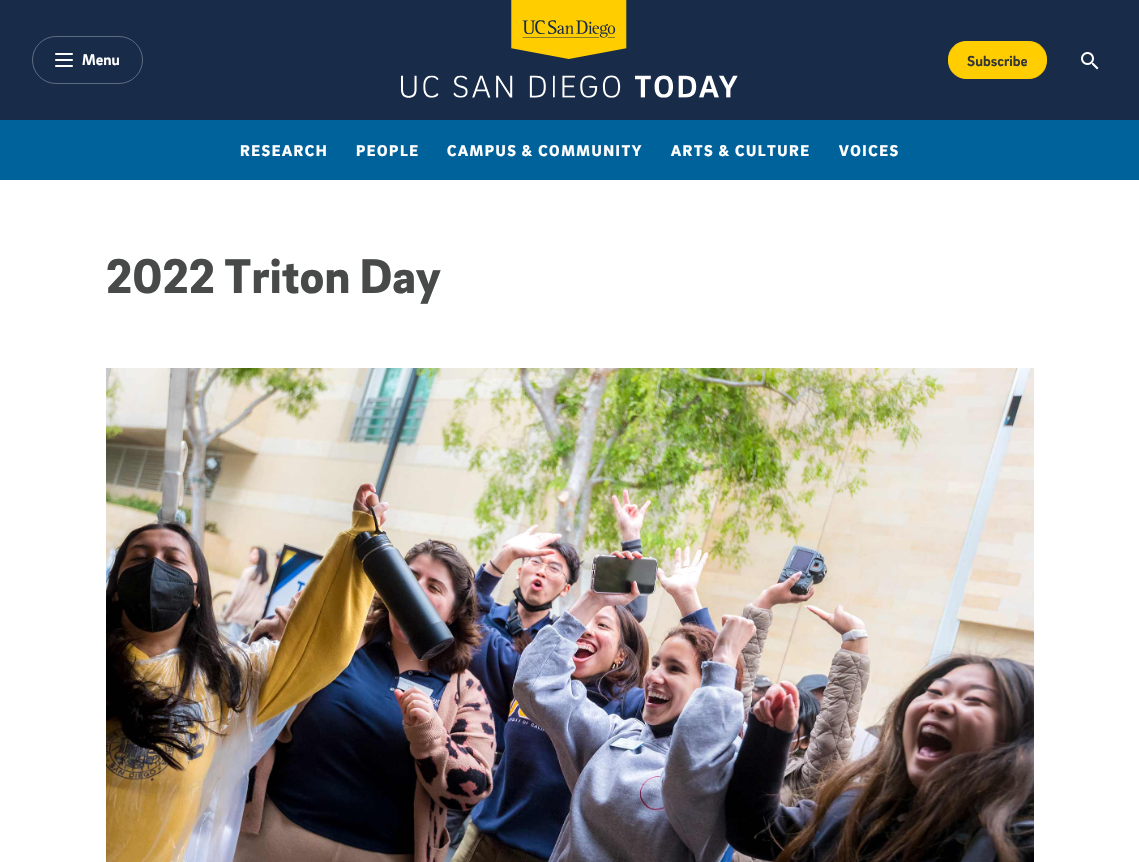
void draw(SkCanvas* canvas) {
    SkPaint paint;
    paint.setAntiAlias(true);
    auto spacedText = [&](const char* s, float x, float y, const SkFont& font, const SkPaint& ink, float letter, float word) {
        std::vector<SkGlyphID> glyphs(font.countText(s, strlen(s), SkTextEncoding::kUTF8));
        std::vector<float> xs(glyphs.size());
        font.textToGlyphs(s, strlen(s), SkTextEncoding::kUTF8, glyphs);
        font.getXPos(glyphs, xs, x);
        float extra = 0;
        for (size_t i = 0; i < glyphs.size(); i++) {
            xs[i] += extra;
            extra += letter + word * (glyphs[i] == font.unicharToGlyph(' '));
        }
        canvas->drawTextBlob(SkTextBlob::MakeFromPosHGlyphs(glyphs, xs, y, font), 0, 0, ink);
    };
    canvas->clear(0xFFFFFFFF);
    paint.setColor(0xFF182B49);
    canvas->drawRect(SkRect::MakeXYWH(0, 0, 1139, 120), paint);
    paint.setStyle(SkPaint::kStroke_Style);
    paint.setStrokeWidth(1);
    paint.setColor(0xFF5D6B80);
    canvas->drawRoundRect(SkRect::MakeXYWH(32.5f, 36.5f, 110, 47), 23.5f, 23.5f, paint);
    canvas->drawImageRect(SkImages::DeferredFromEncodedData(SkData::MakeFromFileName("img1.png")), SkRect::MakeXYWH(55, 53, 18, 14), SkSamplingOptions());
    SkFont font1(fontMgr->matchFamilyStyle("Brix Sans", SkFontStyle::Bold()), 16);
    font1.setSubpixel(true);
    paint.setStyle(SkPaint::kFill_Style);
    paint.setColor(0xFFFFFFFF);
    canvas->drawString("Menu", 82, 65, font1, paint);
    canvas->drawImageRect(SkImages::DeferredFromEncodedData(SkData::MakeFromFileName("img2.png")), SkRect::MakeXYWH(401, 0, 337, 98), SkSamplingOptions());
    paint.setColor(0xFFFFCD00);
    canvas->drawRoundRect(SkRect::MakeXYWH(948.5f, 41.5f, 98, 37), 17.5f, 17.5f, paint);
    paint.setStyle(SkPaint::kStroke_Style);
    canvas->drawRoundRect(SkRect::MakeXYWH(948.5f, 41.5f, 98, 37), 17.5f, 17.5f, paint);
    SkFont font2(fontMgr->matchFamilyStyle("Brix Sans", SkFontStyle::Bold()), 15);
    font2.setSubpixel(true);
    paint.setStyle(SkPaint::kFill_Style);
    paint.setColor(0xFF363738);
    canvas->drawString("Subscribe", 967, 66, font2, paint);
    canvas->drawImageRect(SkImages::DeferredFromEncodedData(SkData::MakeFromFileName("img3.png")), SkRect::MakeXYWH(1081, 52, 18, 18), SkSamplingOptions());
    paint.setColor(0xFF00629B);
    canvas->drawRect(SkRect::MakeXYWH(0, 120, 1139, 60), paint);
    SkFont font3(fontMgr->matchFamilyStyle("Brix Sans", SkFontStyle(900, SkFontStyle::kNormal_Width, SkFontStyle::kUpright_Slant)), 16);
    font3.setSubpixel(true);
    paint.setColor(0xFFFFFFFF);
    spacedText("RESEARCH", 240, 156, font3, paint, 1.5f, 0);
    spacedText("PEOPLE", 356, 156, font3, paint, 1.5f, 0);
    spacedText("CAMPUS & COMMUNITY", 447, 156, font3, paint, 1.5f, 0);
    spacedText("ARTS & CULTURE", 671, 156, font3, paint, 1.5f, 0);
    spacedText("VOICES", 839, 156, font3, paint, 1.5f, 0);
    SkFont font4(fontMgr->matchFamilyStyle("Brix Sans", SkFontStyle(900, SkFontStyle::kNormal_Width, SkFontStyle::kUpright_Slant)), 50);
    font4.setSubpixel(true);
    paint.setColor(0xFF484949);
    canvas->drawString("2022 Triton Day", 106, 293, font4, paint);
    canvas->drawImageRect(SkImages::DeferredFromEncodedData(SkData::MakeFromFileName("img4.png")), SkRect::MakeXYWH(106, 368, 928, 494), SkSamplingOptions());
}
